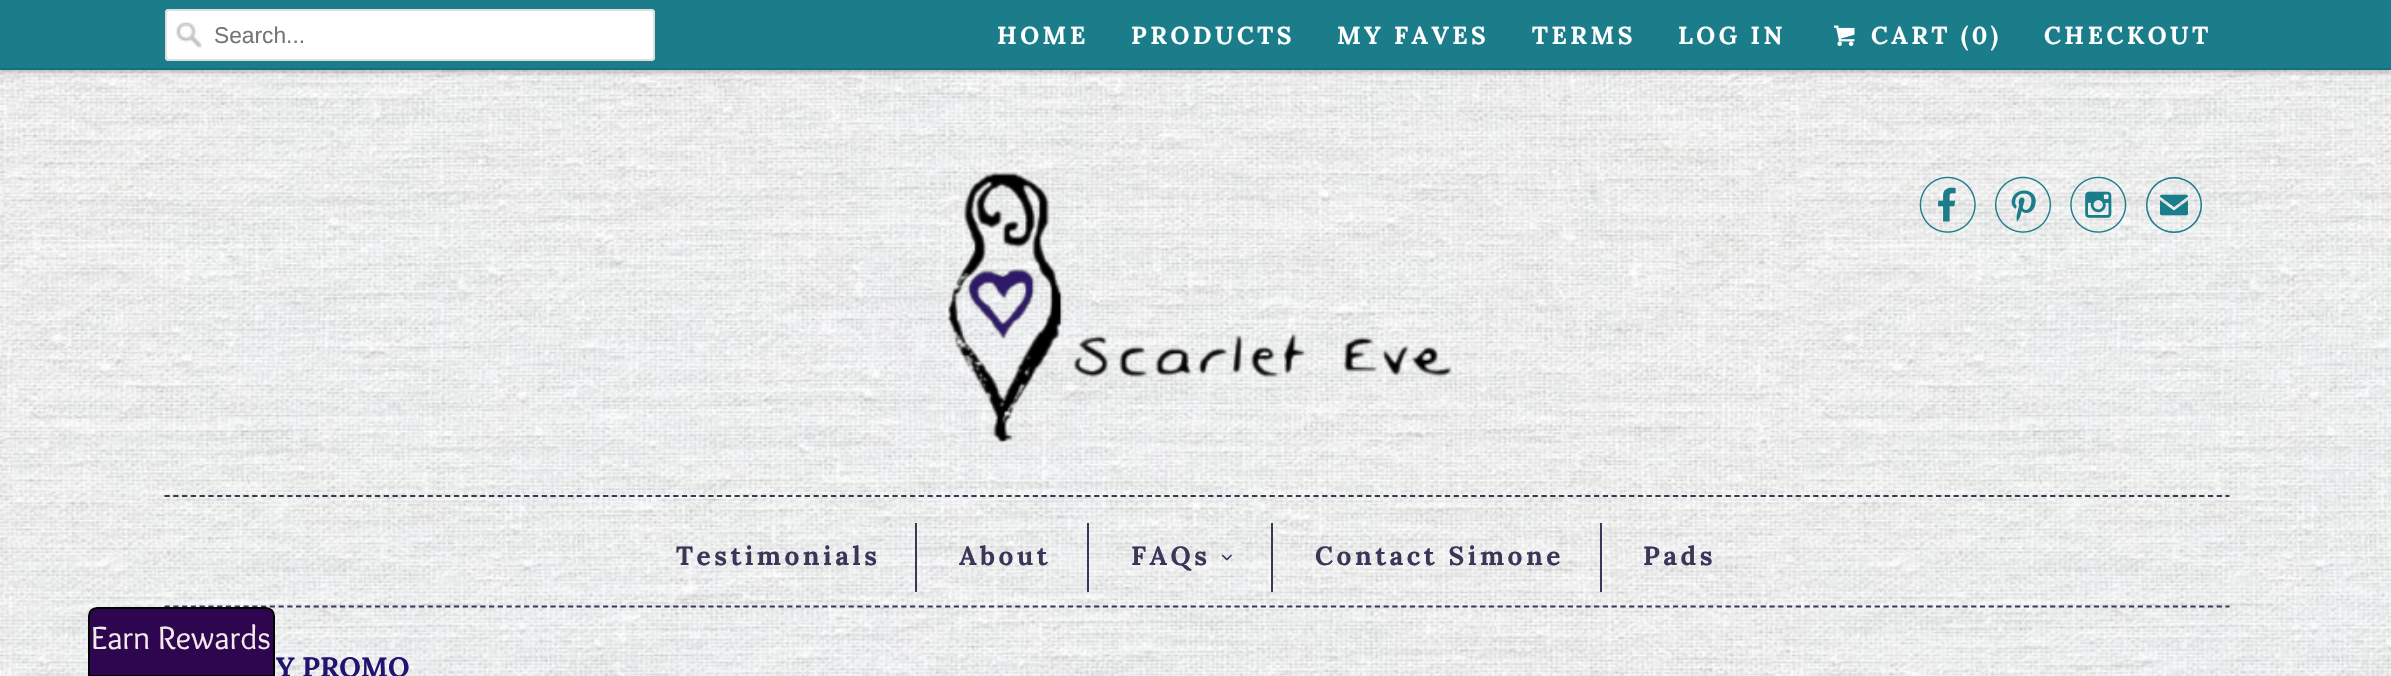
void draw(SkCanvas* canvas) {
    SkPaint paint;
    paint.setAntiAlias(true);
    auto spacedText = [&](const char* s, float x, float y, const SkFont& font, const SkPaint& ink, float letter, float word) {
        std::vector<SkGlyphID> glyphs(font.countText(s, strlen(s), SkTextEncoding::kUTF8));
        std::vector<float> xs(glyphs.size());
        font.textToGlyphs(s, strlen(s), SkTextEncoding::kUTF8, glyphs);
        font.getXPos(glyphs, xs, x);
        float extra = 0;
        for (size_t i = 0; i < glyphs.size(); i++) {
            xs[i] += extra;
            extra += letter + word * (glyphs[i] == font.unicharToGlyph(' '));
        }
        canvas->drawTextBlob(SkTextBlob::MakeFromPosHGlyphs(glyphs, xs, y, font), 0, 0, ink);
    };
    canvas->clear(0xFFFFFFFF);
    canvas->drawImageRect(SkImages::DeferredFromEncodedData(SkData::MakeFromFileName("img1.png")), SkRect::MakeXYWH(0, 70, 2391, 606), SkSamplingOptions());
    paint.setStyle(SkPaint::kStroke_Style);
    paint.setStrokeWidth(1.8f);
    paint.setColor(0xFF3B3558);
    paint.setPathEffect(SkDashPathEffect::Make({{5.25f, 3.52f}}, 0));
    canvas->drawPath(SkPathBuilder().moveTo(164.5f, 606.5f).lineTo(2229.5f, 606.5f).detach(), paint);
    paint.setPathEffect(nullptr);
    paint.setStyle(SkPaint::kFill_Style);
    paint.setColor(0xFF2E064F);
    canvas->drawPath(SkPathBuilder().moveTo(97, 608).lineTo(266, 608).cubicTo(270.5f, 608, 274, 611.5f, 274, 616).lineTo(274, 676).lineTo(89, 676).lineTo(89, 616).cubicTo(89, 611.5f, 92.5f, 608, 97, 608).close().detach(), paint);
    paint.setStyle(SkPaint::kStroke_Style);
    paint.setStrokeWidth(2);
    paint.setColor(0xFF000000);
    canvas->drawPath(SkPathBuilder().moveTo(97, 608).lineTo(266, 608).cubicTo(270.5f, 608, 274, 611.5f, 274, 616).lineTo(274, 676).lineTo(89, 676).lineTo(89, 616).cubicTo(89, 611.5f, 92.5f, 608, 97, 608).close().detach(), paint);
    SkFont font1(fontMgr->matchFamilyStyle("Overlock", SkFontStyle::Normal()), 33.25f);
    font1.setSubpixel(true);
    paint.setStyle(SkPaint::kFill_Style);
    paint.setColor(0xFFF2E9E9);
    canvas->drawString("Earn Rewards", 91, 649, font1, paint);
    paint.setColor(0x40000000);
    paint.setMaskFilter(SkMaskFilter::MakeBlur(kNormal_SkBlurStyle, 2.5f));
    canvas->drawRect(SkRect::MakeXYWH(0, 2, 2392, 70), paint);
    paint.setMaskFilter(nullptr);
    paint.setColor(0xFF1B7C8A);
    canvas->drawRect(SkRect::MakeXYWH(0, 0, 2391, 68), paint);
    paint.setColor(0xFF18707C);
    canvas->drawRect(SkRect::MakeXYWH(0, 68, 2391, 2), paint);
    paint.setColor(0xFFFFFFFF);
    canvas->drawRoundRect(SkRect::MakeXYWH(165, 9, 490, 52), 4, 4, paint);
    canvas->drawImageRect(SkImages::DeferredFromEncodedData(SkData::MakeFromFileName("img2.png")), SkRect::MakeXYWH(176, 22, 26, 26), SkSamplingOptions());
    paint.setStyle(SkPaint::kStroke_Style);
    paint.setColor(0xFFDFDFDF);
    canvas->drawRoundRect(SkRect::MakeXYWH(166, 10, 488, 50), 3, 3, paint);
    SkFont font2(fontMgr->matchFamilyStyle("Liberation Sans", SkFontStyle::Normal()), 22.75f);
    font2.setSubpixel(true);
    paint.setStyle(SkPaint::kFill_Style);
    paint.setColor(0xFF757575);
    canvas->drawString("Search...", 214, 43, font2, paint);
    SkFont font3(fontMgr->matchFamilyStyle("Lora", SkFontStyle::Bold()), 24.5f);
    font3.setSubpixel(true);
    paint.setColor(0xFFFFFFFF);
    spacedText("HOME", 997, 44, font3, paint, 3.5f, 0);
    spacedText("PRODUCTS", 1131, 44, font3, paint, 3.5f, 0);
    spacedText("MY FAVES", 1337, 44, font3, paint, 3.5f, 0);
    spacedText("TERMS", 1532, 44, font3, paint, 3.5f, 0);
    spacedText("LOG IN", 1678, 44, font3, paint, 3.5f, 0);
    canvas->drawImageRect(SkImages::DeferredFromEncodedData(SkData::MakeFromFileName("img3.png")), SkRect::MakeXYWH(1834, 25, 21, 21), SkSamplingOptions());
    spacedText("CART (0)", 1871, 44, font3, paint, 3.5f, 0);
    spacedText("CHECKOUT", 2044, 44, font3, paint, 3.5f, 0);
    canvas->drawImageRect(SkImages::DeferredFromEncodedData(SkData::MakeFromFileName("img4.png")), SkRect::MakeXYWH(948, 172, 504, 271), SkSamplingOptions());
    canvas->drawImageRect(SkImages::DeferredFromEncodedData(SkData::MakeFromFileName("img5.png")), SkRect::MakeXYWH(1919, 176, 57, 57), SkSamplingOptions());
    canvas->drawImageRect(SkImages::DeferredFromEncodedData(SkData::MakeFromFileName("img6.png")), SkRect::MakeXYWH(1995, 176, 56, 57), SkSamplingOptions());
    canvas->drawImageRect(SkImages::DeferredFromEncodedData(SkData::MakeFromFileName("img7.png")), SkRect::MakeXYWH(2070, 176, 57, 57), SkSamplingOptions());
    SkFont font4(fontMgr->matchFamilyStyle("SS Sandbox", SkFontStyle::Normal()), 56);
    font4.setSubpixel(true);
    paint.setColor(0xFF1B7C8A);
    canvas->drawString("✉", 2146, 233, font4, paint);
    paint.setStyle(SkPaint::kStroke_Style);
    paint.setStrokeWidth(1.8f);
    paint.setColor(0xFF3B3558);
    paint.setPathEffect(SkDashPathEffect::Make({{5.25f, 3.52f}}, 0));
    canvas->drawPath(SkPathBuilder().moveTo(164.5f, 496).lineTo(2229.5f, 496).detach(), paint);
    paint.setPathEffect(nullptr);
    paint.setStyle(SkPaint::kFill_Style);
    canvas->drawRect(SkRect::MakeXYWH(915, 523, 2, 69), paint);
    SkFont font5(fontMgr->matchFamilyStyle("Lora", SkFontStyle::Bold()), 26.25f);
    font5.setSubpixel(true);
    spacedText("Testimonials", 676, 565, font5, paint, 3.5f, 0);
    canvas->drawRect(SkRect::MakeXYWH(1087, 523, 2, 69), paint);
    spacedText("About", 959, 565, font5, paint, 3.5f, 0);
    canvas->drawRect(SkRect::MakeXYWH(1271, 523, 2, 69), paint);
    spacedText("FAQs", 1131, 565, font5, paint, 3.5f, 0);
    canvas->drawImageRect(SkImages::DeferredFromEncodedData(SkData::MakeFromFileName("img8.png")), SkRect::MakeXYWH(1221, 554, 11, 7), SkSamplingOptions());
    canvas->drawRect(SkRect::MakeXYWH(1600, 523, 2, 69), paint);
    spacedText("Contact Simone", 1315, 565, font5, paint, 3.5f, 0);
    spacedText("Pads", 1643, 565, font5, paint, 3.5f, 0);
    SkFont font6(fontMgr->matchFamilyStyle("Lora", SkFontStyle::Bold()), 28);
    font6.setSubpixel(true);
    paint.setColor(0xFF231370);
    canvas->drawString("Y PROMO", 276, 677, font6, paint);
}
